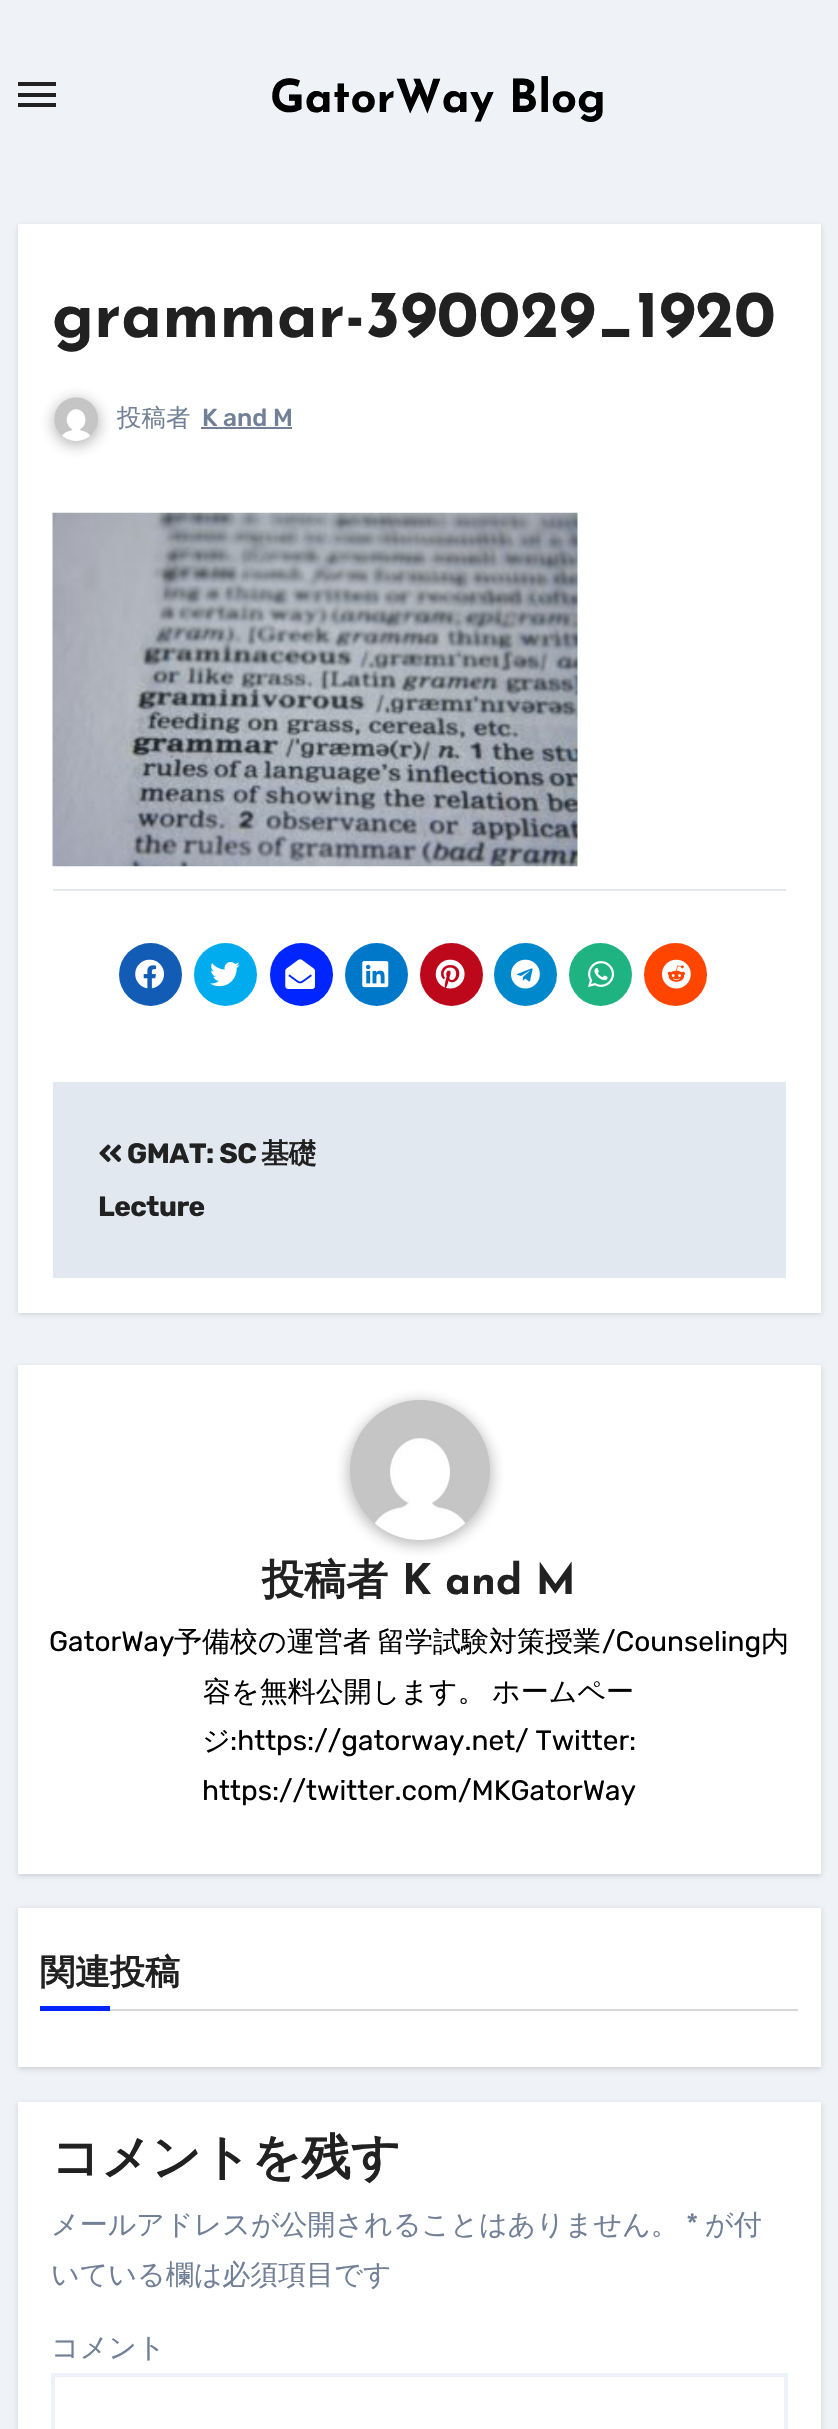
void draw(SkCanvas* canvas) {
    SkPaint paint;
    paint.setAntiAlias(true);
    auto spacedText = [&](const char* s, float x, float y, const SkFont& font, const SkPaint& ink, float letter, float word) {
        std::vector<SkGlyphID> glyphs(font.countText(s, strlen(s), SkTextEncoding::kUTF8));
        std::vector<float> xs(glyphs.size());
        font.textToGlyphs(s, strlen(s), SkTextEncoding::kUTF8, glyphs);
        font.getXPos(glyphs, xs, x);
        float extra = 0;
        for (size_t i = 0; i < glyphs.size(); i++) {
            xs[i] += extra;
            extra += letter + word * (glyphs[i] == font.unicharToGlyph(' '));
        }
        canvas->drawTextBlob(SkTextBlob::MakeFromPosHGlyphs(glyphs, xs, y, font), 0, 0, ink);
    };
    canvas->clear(0xFFEFF2F7);
    paint.setColor(0xFF212121);
    canvas->drawRect(SkRect::MakeXYWH(18, 82, 38, 4), paint);
    canvas->drawRect(SkRect::MakeXYWH(18, 93, 38, 4), paint);
    canvas->drawRect(SkRect::MakeXYWH(18, 103, 38, 4), paint);
    SkFont font1(fontMgr->matchFamilyStyle("Josefin Sans", SkFontStyle::Bold()), 45.5f);
    font1.setSubpixel(true);
    paint.setColor(0xFF000000);
    canvas->drawString("GatorWay Blog", 270, 112, font1, paint);
    paint.setColor(0x26000000);
    paint.setMaskFilter(SkMaskFilter::MakeBlur(kNormal_SkBlurStyle, 2.5f));
    canvas->drawRect(SkRect::MakeXYWH(18, 226, 803, 1088), paint);
    paint.setMaskFilter(nullptr);
    paint.setColor(0xFFFFFFFF);
    canvas->drawRect(SkRect::MakeXYWH(18, 224, 803, 1089), paint);
    SkFont font2(fontMgr->matchFamilyStyle("Josefin Sans", SkFontStyle::Bold()), 66.5f);
    font2.setSubpixel(true);
    paint.setColor(0xFF212121);
    canvas->drawString("grammar-390029_1920", 52, 337, font2, paint);
    paint.setColor(0x4D212121);
    paint.setMaskFilter(SkMaskFilter::MakeBlur(kNormal_SkBlurStyle, 7));
    canvas->drawRoundRect(SkRect::MakeXYWH(53, 399, 47, 47), 23.5f, 23.5f, paint);
    paint.setMaskFilter(nullptr);
    canvas->drawImageRect(SkImages::DeferredFromEncodedData(SkData::MakeFromFileName("img1.png")), SkRect::MakeXYWH(54, 397, 44, 44), SkSamplingOptions());
    SkFont font3(fontMgr->matchFamilyStyle("WenQuanYi Zen Hei", SkFontStyle(500, SkFontStyle::kNormal_Width, SkFontStyle::kUpright_Slant)), 24.5f);
    font3.setSubpixel(true);
    paint.setColor(0xFF718096);
    canvas->drawString("投稿者", 117, 426, font3, paint);
    SkFont font4(fontMgr->matchFamilyStyle("Rubik", SkFontStyle(500, SkFontStyle::kNormal_Width, SkFontStyle::kUpright_Slant)), 24.5f);
    font4.setSubpixel(true);
    canvas->drawString("K and M", 202, 426, font4, paint);
    canvas->drawRect(SkRect::MakeXYWH(201, 427, 91, 2), paint);
    canvas->drawImageRect(SkImages::DeferredFromEncodedData(SkData::MakeFromFileName("img2.png")), SkRect::MakeXYWH(52, 512, 526, 355), SkSamplingOptions());
    paint.setColor(0xFFE2E8F0);
    canvas->drawRect(SkRect::MakeXYWH(53, 889, 733, 2), paint);
    paint.setColor(0xFF135CB6);
    canvas->drawCircle(150.5f, 974.5f, 31.5f, paint);
    canvas->drawImageRect(SkImages::DeferredFromEncodedData(SkData::MakeFromFileName("img3.png")), SkRect::MakeXYWH(135, 959, 29, 30), SkSamplingOptions());
    paint.setColor(0xFF00ACED);
    canvas->drawCircle(225.5f, 974.5f, 31.5f, paint);
    canvas->drawImageRect(SkImages::DeferredFromEncodedData(SkData::MakeFromFileName("img4.png")), SkRect::MakeXYWH(210, 962, 30, 25), SkSamplingOptions());
    paint.setColor(0xFF0025FF);
    canvas->drawCircle(301.5f, 974.5f, 31.5f, paint);
    canvas->drawImageRect(SkImages::DeferredFromEncodedData(SkData::MakeFromFileName("img5.png")), SkRect::MakeXYWH(285, 959, 30, 30), SkSamplingOptions());
    paint.setColor(0xFF0078CA);
    canvas->drawCircle(376.5f, 974.5f, 31.5f, paint);
    canvas->drawImageRect(SkImages::DeferredFromEncodedData(SkData::MakeFromFileName("img6.png")), SkRect::MakeXYWH(362, 961, 27, 27), SkSamplingOptions());
    paint.setColor(0xFFBD081C);
    canvas->drawCircle(451.5f, 974.5f, 31.5f, paint);
    canvas->drawImageRect(SkImages::DeferredFromEncodedData(SkData::MakeFromFileName("img7.png")), SkRect::MakeXYWH(435, 959, 30, 30), SkSamplingOptions());
    paint.setColor(0xFF0088CC);
    canvas->drawCircle(525.5f, 974.5f, 31.5f, paint);
    canvas->drawImageRect(SkImages::DeferredFromEncodedData(SkData::MakeFromFileName("img8.png")), SkRect::MakeXYWH(511, 959, 29, 30), SkSamplingOptions());
    paint.setColor(0xFF1FB381);
    canvas->drawCircle(600.5f, 974.5f, 31.5f, paint);
    canvas->drawImageRect(SkImages::DeferredFromEncodedData(SkData::MakeFromFileName("img9.png")), SkRect::MakeXYWH(588, 961, 26, 26), SkSamplingOptions());
    paint.setColor(0xFFFF4500);
    canvas->drawCircle(675.5f, 974.5f, 31.5f, paint);
    canvas->drawImageRect(SkImages::DeferredFromEncodedData(SkData::MakeFromFileName("img10.png")), SkRect::MakeXYWH(662, 959, 29, 30), SkSamplingOptions());
    paint.setColor(0xFFE2E8F0);
    canvas->drawRect(SkRect::MakeXYWH(53, 1082, 733, 196), paint);
    canvas->drawImageRect(SkImages::DeferredFromEncodedData(SkData::MakeFromFileName("img11.png")), SkRect::MakeXYWH(99, 1144, 23, 18), SkSamplingOptions());
    SkFont font5(fontMgr->matchFamilyStyle("Rubik", SkFontStyle::Bold()), 28);
    font5.setSubpixel(true);
    paint.setColor(0xFF212121);
    spacedText("GMAT: SC", 127, 1163, font5, paint, -0.5f, 0);
    SkFont font6(fontMgr->matchFamilyStyle("WenQuanYi Zen Hei", SkFontStyle::Bold()), 28);
    font6.setSubpixel(true);
    spacedText("基礎", 261, 1163, font6, paint, -0.5f, 0);
    spacedText("Lecture", 98, 1216, font5, paint, -0.5f, 0);
    paint.setColor(0x26000000);
    paint.setMaskFilter(SkMaskFilter::MakeBlur(kNormal_SkBlurStyle, 2.5f));
    canvas->drawRect(SkRect::MakeXYWH(18, 1367, 803, 509), paint);
    paint.setMaskFilter(nullptr);
    paint.setColor(0xFFFFFFFF);
    canvas->drawRect(SkRect::MakeXYWH(18, 1365, 803, 509), paint);
    paint.setColor(0x4D212121);
    paint.setMaskFilter(SkMaskFilter::MakeBlur(kNormal_SkBlurStyle, 7));
    canvas->drawRoundRect(SkRect::MakeXYWH(348, 1402, 144, 143), 71.5f, 71.5f, paint);
    paint.setMaskFilter(nullptr);
    canvas->drawImageRect(SkImages::DeferredFromEncodedData(SkData::MakeFromFileName("img12.png")), SkRect::MakeXYWH(350, 1400, 140, 140), SkSamplingOptions());
    SkFont font7(fontMgr->matchFamilyStyle("WenQuanYi Zen Hei", SkFontStyle::Bold()), 42);
    font7.setSubpixel(true);
    paint.setColor(0xFF212121);
    canvas->drawString("投稿者", 262, 1594, font7, paint);
    SkFont font8(fontMgr->matchFamilyStyle("Josefin Sans", SkFontStyle::Bold()), 42);
    font8.setSubpixel(true);
    canvas->drawString("K and M", 402, 1594, font8, paint);
    SkFont font9(fontMgr->matchFamilyStyle("Rubik", SkFontStyle(300, SkFontStyle::kNormal_Width, SkFontStyle::kUpright_Slant)), 28);
    font9.setSubpixel(true);
    paint.setColor(0xFF000000);
    canvas->drawString("GatorWay", 49, 1651, font9, paint);
    SkFont font10(fontMgr->matchFamilyStyle("WenQuanYi Zen Hei", SkFontStyle(500, SkFontStyle::kNormal_Width, SkFontStyle::kUpright_Slant)), 28);
    font10.setSubpixel(true);
    spacedText("予備校の運営者 留学試験対策授業", 174, 1651, font10, paint, 0, -2);
    canvas->drawString("/Counseling", 602, 1651, font9, paint);
    canvas->drawString("内", 761, 1651, font10, paint);
    spacedText("容を無料公開します。 ホームペー", 203, 1701, font10, paint, 0, -2);
    canvas->drawString("ジ", 202, 1750, font10, paint);
    canvas->drawString(":https://gatorway.net/ Twitter:", 230, 1750, font9, paint);
    canvas->drawString("https://twitter.com/MKGatorWay", 202, 1800, font9, paint);
    paint.setColor(0x26000000);
    paint.setMaskFilter(SkMaskFilter::MakeBlur(kNormal_SkBlurStyle, 2.5f));
    canvas->drawRect(SkRect::MakeXYWH(18, 1909, 803, 160), paint);
    paint.setMaskFilter(nullptr);
    paint.setColor(0xFFFFFFFF);
    canvas->drawRect(SkRect::MakeXYWH(18, 1908, 803, 159), paint);
    paint.setColor(0xFFD7D7D7);
    canvas->drawRect(SkRect::MakeXYWH(110, 2009, 688, 2), paint);
    SkFont font11(fontMgr->matchFamilyStyle("WenQuanYi Zen Hei", SkFontStyle::Bold()), 35);
    font11.setSubpixel(true);
    paint.setColor(0xFF212121);
    canvas->drawString("関連投稿", 40, 1984, font11, paint);
    paint.setColor(0xFF0025FF);
    canvas->drawRect(SkRect::MakeXYWH(40, 2006, 70, 5), paint);
    paint.setColor(0x26000000);
    paint.setMaskFilter(SkMaskFilter::MakeBlur(kNormal_SkBlurStyle, 2.5f));
    canvas->drawRect(SkRect::MakeXYWH(18, 2104, 803, 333), paint);
    paint.setMaskFilter(nullptr);
    paint.setColor(0xFFFFFFFF);
    canvas->drawRect(SkRect::MakeXYWH(18, 2102, 803, 327), paint);
    SkFont font12(fontMgr->matchFamilyStyle("WenQuanYi Zen Hei", SkFontStyle::Bold()), 49);
    font12.setSubpixel(true);
    paint.setColor(0xFF212121);
    canvas->drawString("コメントを残す", 51, 2174, font12, paint);
    paint.setColor(0xFF718096);
    canvas->drawString("メールアドレスが公開されることはありません。", 51, 2234, font10, paint);
    canvas->drawString("*", 686, 2234, font9, paint);
    canvas->drawString("が付", 705, 2234, font10, paint);
    canvas->drawString("いている欄は必須項目です", 51, 2284, font10, paint);
    canvas->drawString("コメント", 51, 2357, font10, paint);
    paint.setStyle(SkPaint::kStroke_Style);
    paint.setStrokeWidth(4);
    paint.setColor(0xFFEEF3FB);
    canvas->drawRect(SkRect::MakeXYWH(53, 2375, 733, 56), paint);
}
